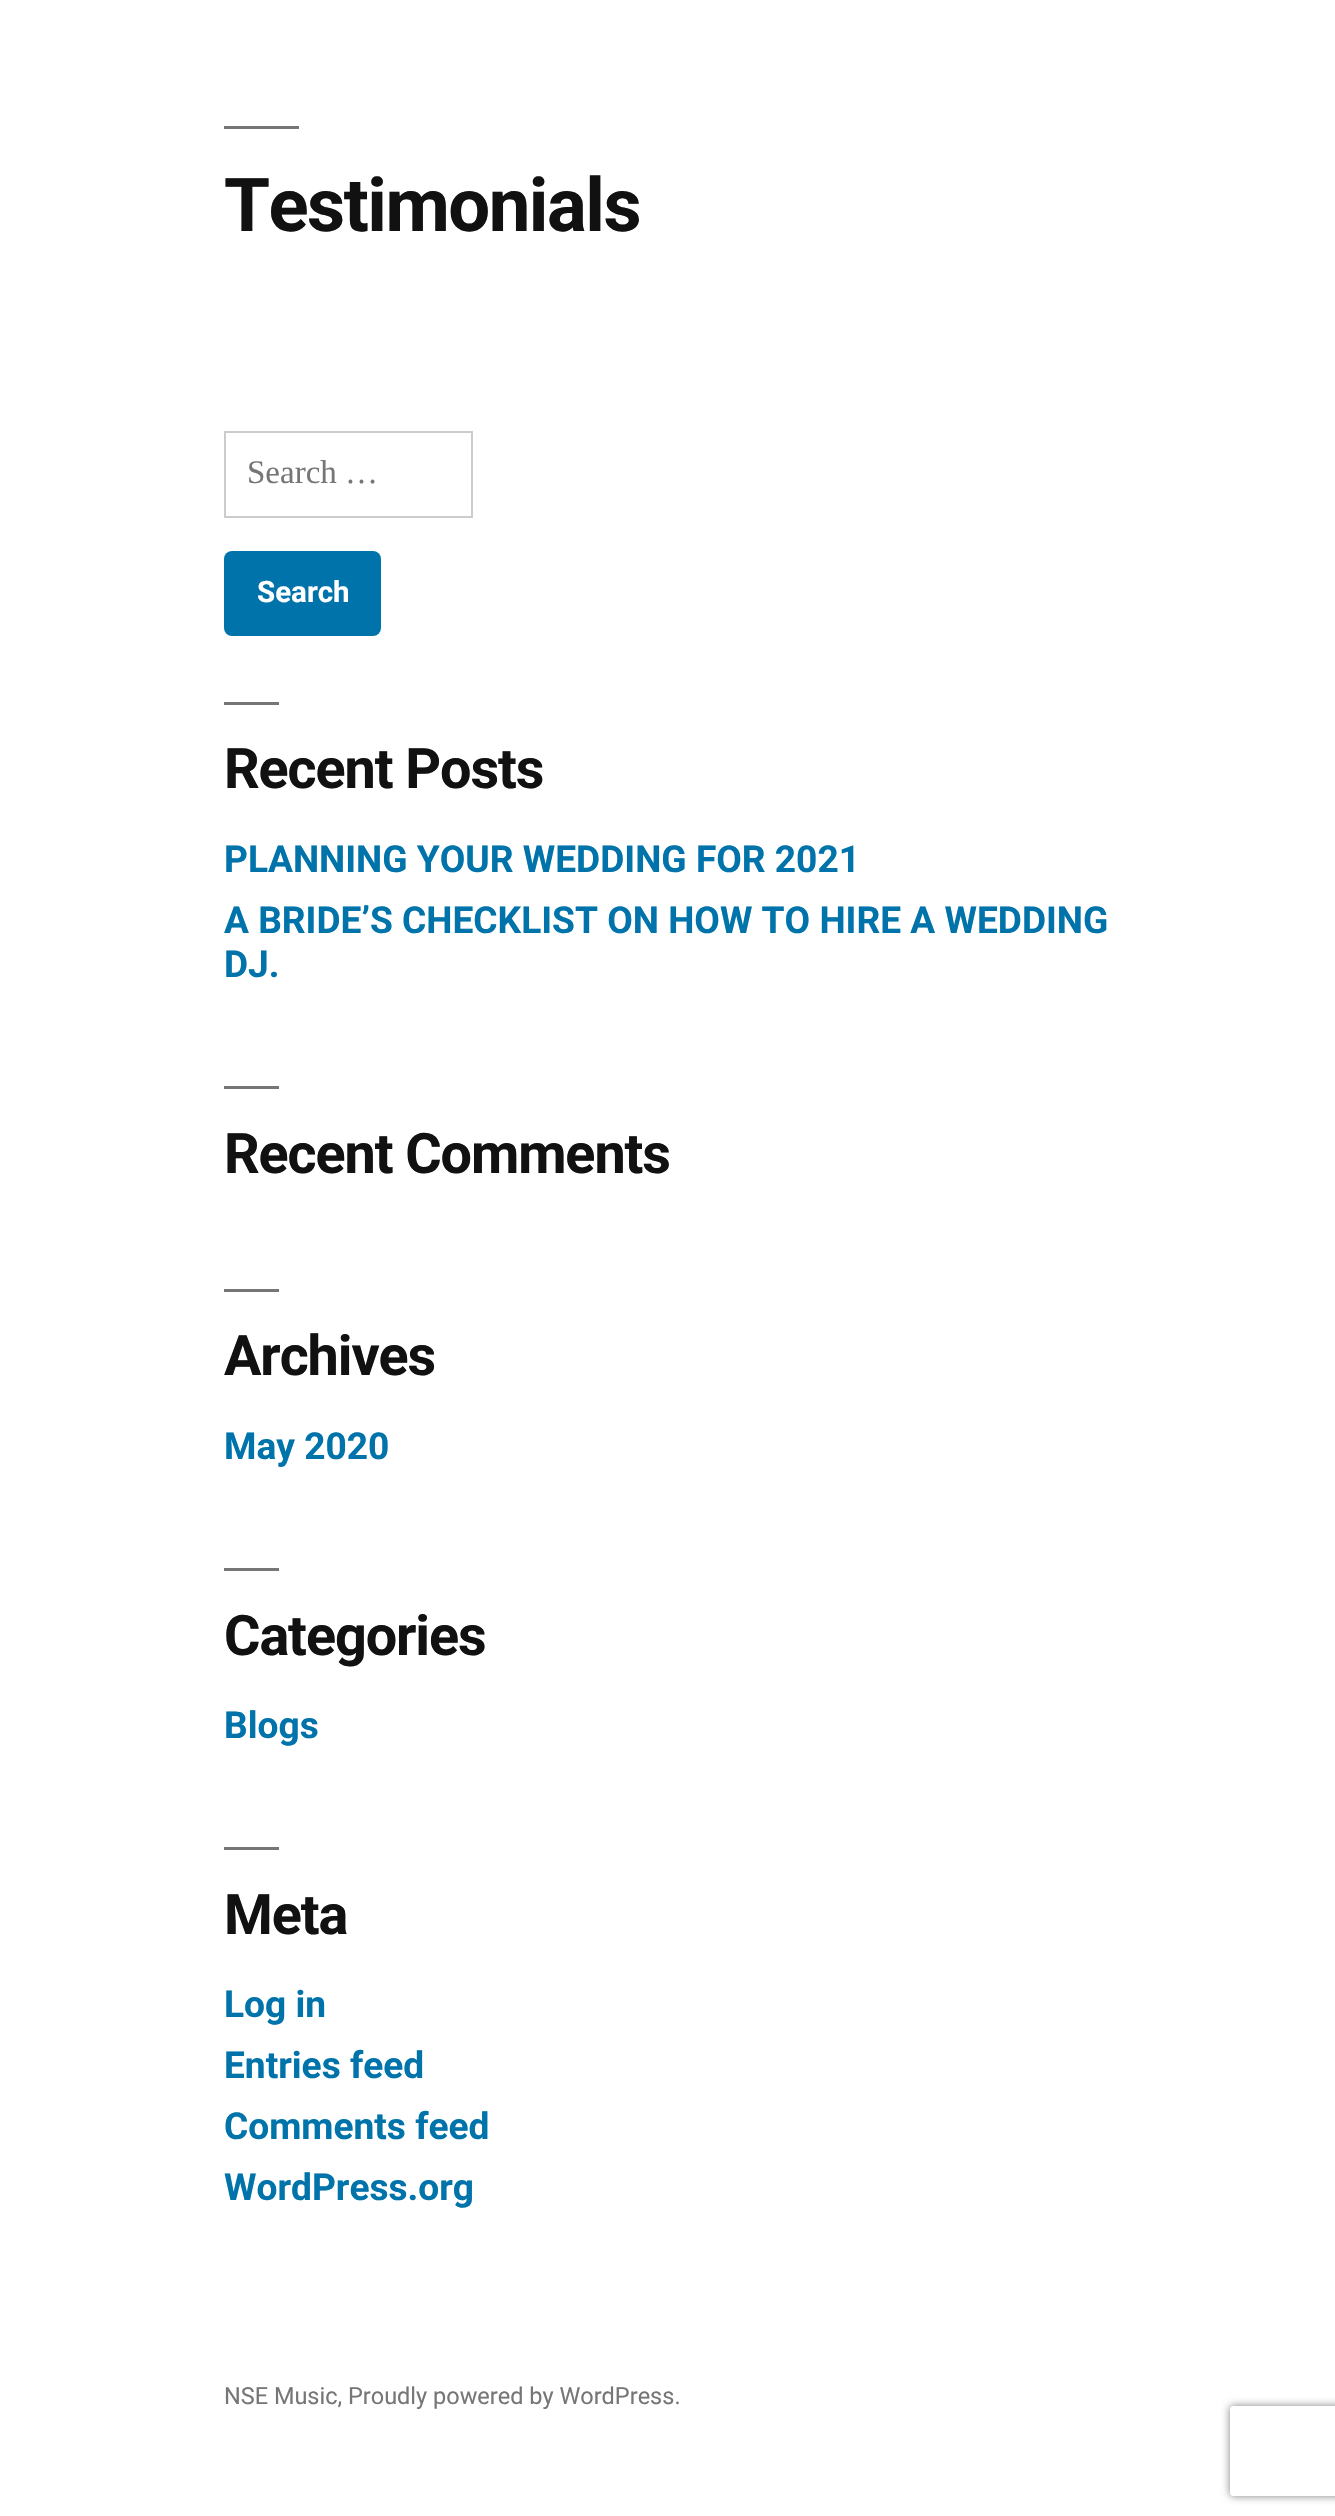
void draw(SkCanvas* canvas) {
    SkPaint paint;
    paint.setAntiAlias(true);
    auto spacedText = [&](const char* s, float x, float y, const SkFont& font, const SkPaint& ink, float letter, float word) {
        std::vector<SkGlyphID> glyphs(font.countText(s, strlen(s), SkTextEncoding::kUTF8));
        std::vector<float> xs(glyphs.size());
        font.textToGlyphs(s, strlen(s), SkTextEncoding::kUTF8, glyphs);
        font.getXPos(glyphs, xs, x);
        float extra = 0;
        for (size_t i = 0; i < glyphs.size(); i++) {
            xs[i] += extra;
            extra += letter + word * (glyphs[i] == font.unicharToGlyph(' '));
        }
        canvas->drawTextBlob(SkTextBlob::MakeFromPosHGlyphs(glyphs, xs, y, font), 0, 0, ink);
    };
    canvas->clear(0xFFFFFFFF);
    paint.setColor(0xFF767676);
    canvas->drawRect(SkRect::MakeXYWH(224, 126, 75, 3), paint);
    SkFont font1(fontMgr->matchFamilyStyle("Roboto", SkFontStyle::Bold()), 74.25f);
    font1.setSubpixel(true);
    paint.setColor(0xFF111111);
    spacedText("Testimonials", 224, 231, font1, paint, -1.5f, 0);
    paint.setStyle(SkPaint::kStroke_Style);
    paint.setStrokeWidth(2);
    paint.setColor(0xFFCCCCCC);
    canvas->drawRect(SkRect::MakeXYWH(225, 432, 247, 85), paint);
    SkFont font2(fontMgr->matchFamilyStyle("Liberation Serif", SkFontStyle::Normal()), 33);
    font2.setSubpixel(true);
    paint.setStyle(SkPaint::kFill_Style);
    paint.setColor(0xFF767676);
    canvas->drawString("Search …", 247, 483, font2, paint);
    paint.setColor(0xFF0073AA);
    canvas->drawRoundRect(SkRect::MakeXYWH(224, 551, 157, 85), 8, 8, paint);
    SkFont font3(fontMgr->matchFamilyStyle("Roboto", SkFontStyle::Bold()), 29.5f);
    font3.setSubpixel(true);
    paint.setColor(0xFFFFFFFF);
    canvas->drawString("Search", 257, 602, font3, paint);
    paint.setColor(0xFF767676);
    canvas->drawRect(SkRect::MakeXYWH(224, 702, 55, 3), paint);
    SkFont font4(fontMgr->matchFamilyStyle("Roboto", SkFontStyle::Bold()), 55.75f);
    font4.setSubpixel(true);
    paint.setColor(0xFF111111);
    spacedText("Recent Posts", 224, 788, font4, paint, -1.1f, 0);
    SkFont font5(fontMgr->matchFamilyStyle("Roboto", SkFontStyle::Bold()), 37.1f);
    font5.setSubpixel(true);
    paint.setColor(0xFF0073AA);
    canvas->drawString("PLANNING YOUR WEDDING FOR 2021", 224, 872, font5, paint);
    canvas->drawString("A BRIDE’S CHECKLIST ON HOW TO HIRE A WEDDING", 224, 933, font5, paint);
    canvas->drawString("DJ.", 224, 977, font5, paint);
    paint.setColor(0xFF767676);
    canvas->drawRect(SkRect::MakeXYWH(224, 1086, 55, 3), paint);
    paint.setColor(0xFF111111);
    spacedText("Recent Comments", 224, 1173, font4, paint, -1.1f, 0);
    paint.setColor(0xFF767676);
    canvas->drawRect(SkRect::MakeXYWH(224, 1289, 55, 3), paint);
    paint.setColor(0xFF111111);
    spacedText("Archives", 224, 1375, font4, paint, -1.1f, 0);
    paint.setColor(0xFF0073AA);
    canvas->drawString("May 2020", 224, 1459, font5, paint);
    paint.setColor(0xFF767676);
    canvas->drawRect(SkRect::MakeXYWH(224, 1568, 55, 3), paint);
    paint.setColor(0xFF111111);
    spacedText("Categories", 224, 1655, font4, paint, -1.1f, 0);
    paint.setColor(0xFF0073AA);
    canvas->drawString("Blogs", 224, 1738, font5, paint);
    paint.setColor(0xFF767676);
    canvas->drawRect(SkRect::MakeXYWH(224, 1847, 55, 3), paint);
    paint.setColor(0xFF111111);
    spacedText("Meta", 224, 1934, font4, paint, -1.1f, 0);
    paint.setColor(0xFF0073AA);
    canvas->drawString("Log in", 224, 2017, font5, paint);
    canvas->drawString("Entries feed", 224, 2078, font5, paint);
    canvas->drawString("Comments feed", 224, 2139, font5, paint);
    canvas->drawString("WordPress.org", 224, 2200, font5, paint);
    SkFont font6(fontMgr->matchFamilyStyle("Roboto", SkFontStyle::Normal()), 23.5f);
    font6.setSubpixel(true);
    paint.setColor(0xFF767676);
    canvas->drawString("NSE Music, Proudly powered by WordPress.", 224, 2404, font6, paint);
    canvas->save();
    canvas->clipPath(SkPathBuilder(SkPathFillType::kEvenOdd).moveTo(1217, 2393).lineTo(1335, 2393).lineTo(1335, 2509).lineTo(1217, 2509).close().moveTo(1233, 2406).lineTo(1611, 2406).cubicTo(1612.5f, 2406, 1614, 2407.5f, 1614, 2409).lineTo(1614, 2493).cubicTo(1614, 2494.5f, 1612.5f, 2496, 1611, 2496).lineTo(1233, 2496).cubicTo(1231.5f, 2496, 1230, 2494.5f, 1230, 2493).lineTo(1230, 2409).cubicTo(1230, 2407.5f, 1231.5f, 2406, 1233, 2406).close().detach(), true);
    paint.setColor(0xFF808080);
    paint.setMaskFilter(SkMaskFilter::MakeBlur(kNormal_SkBlurStyle, 4));
    canvas->drawRoundRect(SkRect::MakeXYWH(1230, 2406, 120, 90), 3, 3, paint);
    paint.setMaskFilter(nullptr);
    canvas->restore();
}
